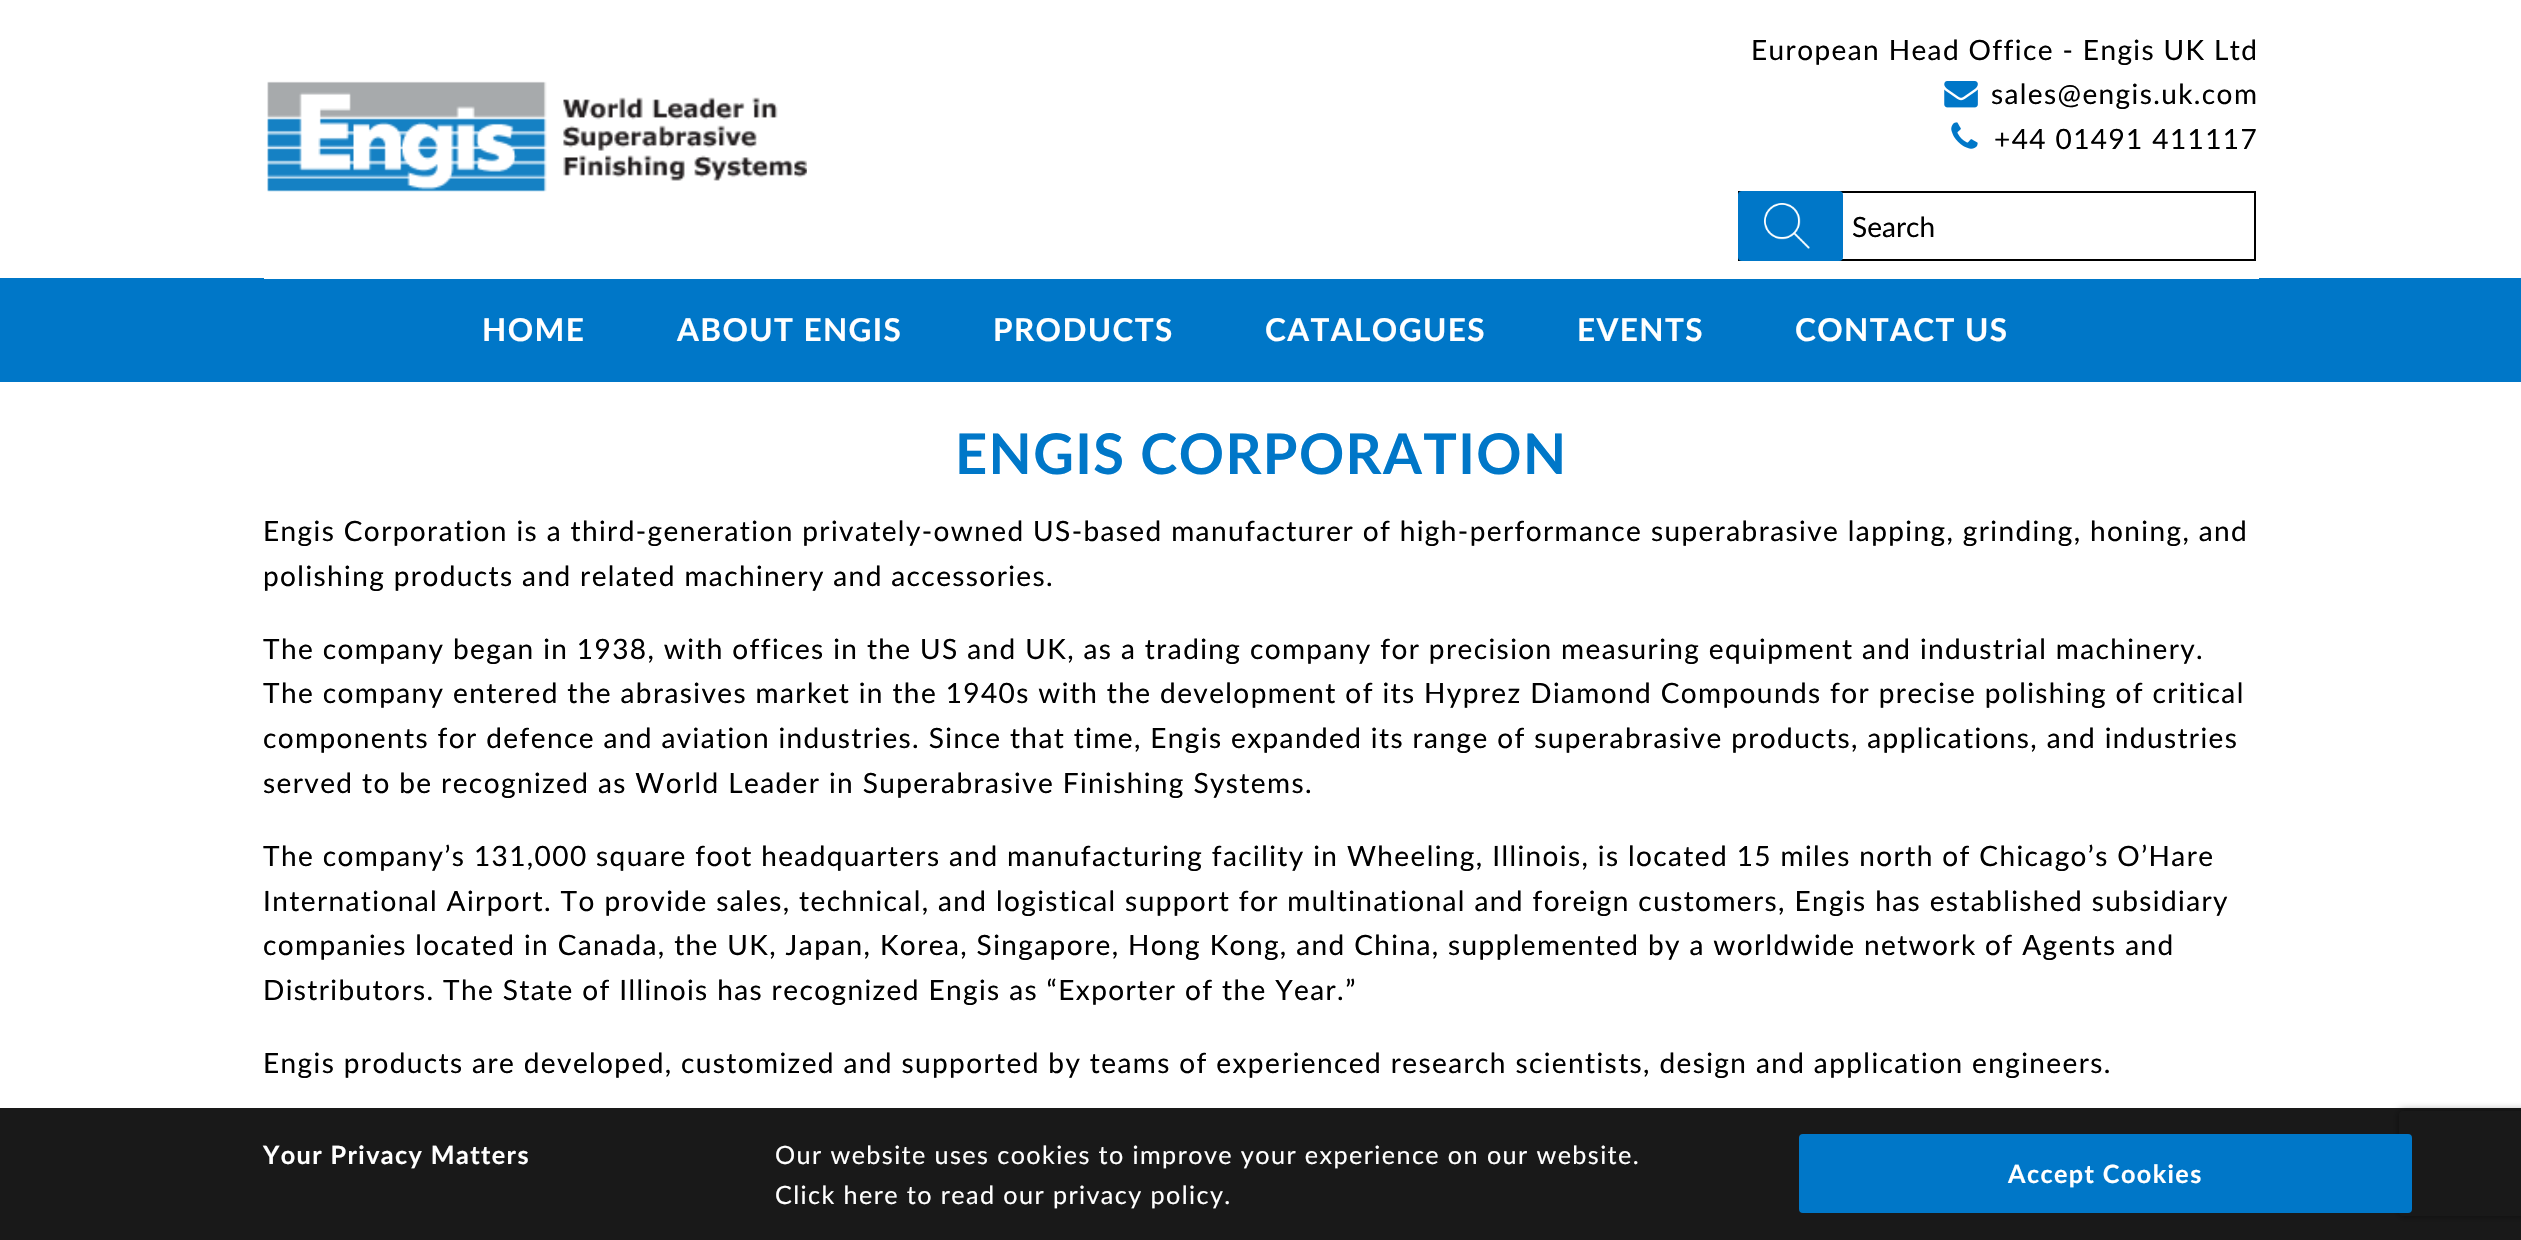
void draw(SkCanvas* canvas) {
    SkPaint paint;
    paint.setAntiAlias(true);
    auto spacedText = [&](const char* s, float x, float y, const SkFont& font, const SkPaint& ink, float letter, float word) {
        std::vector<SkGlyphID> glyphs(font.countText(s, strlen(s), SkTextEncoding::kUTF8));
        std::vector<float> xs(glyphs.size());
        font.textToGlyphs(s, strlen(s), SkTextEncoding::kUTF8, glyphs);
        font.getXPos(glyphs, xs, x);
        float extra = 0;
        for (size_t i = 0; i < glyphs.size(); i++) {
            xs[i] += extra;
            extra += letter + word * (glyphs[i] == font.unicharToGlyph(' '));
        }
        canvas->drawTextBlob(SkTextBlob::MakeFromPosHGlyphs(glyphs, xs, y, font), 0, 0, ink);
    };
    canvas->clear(0xFFFFFFFF);
    paint.setColor(0xFF0077C8);
    canvas->drawRect(SkRect::MakeXYWH(0, 278, 2521, 104), paint);
    paint.setColor(0xFFFFFFFF);
    canvas->drawRect(SkRect::MakeXYWH(264, 278, 1995, 1), paint);
    canvas->drawImageRect(SkImages::DeferredFromEncodedData(SkData::MakeFromFileName("img1.png")), SkRect::MakeXYWH(267, 81, 540, 111), SkSamplingOptions());
    SkFont font1(fontMgr->matchFamilyStyle("Lato", SkFontStyle::Normal()), 28);
    font1.setSubpixel(true);
    paint.setColor(0xFF000000);
    spacedText("European Head Office - Engis UK Ltd", 1751, 60, font1, paint, 1.4f, 0);
    canvas->drawImageRect(SkImages::DeferredFromEncodedData(SkData::MakeFromFileName("img2.png")), SkRect::MakeXYWH(1944, 81, 34, 27), SkSamplingOptions());
    spacedText("sales@engis.uk.com", 1991, 104, font1, paint, 1.4f, 0);
    canvas->drawImageRect(SkImages::DeferredFromEncodedData(SkData::MakeFromFileName("img3.png")), SkRect::MakeXYWH(1951, 122, 27, 27), SkSamplingOptions());
    spacedText("+44 01491 411117", 1994, 149, font1, paint, 1.4f, 0);
    paint.setStyle(SkPaint::kStroke_Style);
    paint.setStrokeWidth(2);
    canvas->drawRect(SkRect::MakeXYWH(1739, 192, 516, 68), paint);
    paint.setStyle(SkPaint::kFill_Style);
    paint.setColor(0xFF0077C8);
    canvas->drawRoundRect(SkRect::MakeXYWH(1738, 191, 105, 70), 4, 4, paint);
    canvas->drawImageRect(SkImages::DeferredFromEncodedData(SkData::MakeFromFileName("img4.png")), SkRect::MakeXYWH(1764, 203, 46, 46), SkSamplingOptions());
    paint.setColor(0xFF000000);
    canvas->drawString("Search", 1852, 237, font1, paint);
    SkFont font2(fontMgr->matchFamilyStyle("Lato", SkFontStyle::Bold()), 31.5f);
    font2.setSubpixel(true);
    paint.setColor(0xFFFFFFFF);
    spacedText("HOME", 482, 341, font2, paint, 1.4f, 0);
    spacedText("ABOUT ENGIS", 677, 341, font2, paint, 1.4f, 0);
    spacedText("PRODUCTS", 993, 341, font2, paint, 1.4f, 0);
    spacedText("CATALOGUES", 1265, 341, font2, paint, 1.4f, 0);
    spacedText("EVENTS", 1577, 341, font2, paint, 1.4f, 0);
    spacedText("CONTACT US", 1795, 341, font2, paint, 1.4f, 0);
    SkFont font3(fontMgr->matchFamilyStyle("Lato", SkFontStyle::Bold()), 56);
    font3.setSubpixel(true);
    paint.setColor(0xFF0077C8);
    spacedText("ENGIS CORPORATION", 955, 474, font3, paint, 1.4f, 0);
    paint.setColor(0xFF000000);
    spacedText("Engis Corporation is a third-generation privately-owned US-based manufacturer of high-performance superabrasive lapping, grinding, honing, and", 263, 541, font1, paint, 1.4f, 0);
    spacedText("polishing products and related machinery and accessories.", 263, 586, font1, paint, 1.4f, 0);
    spacedText("The company began in 1938, with offices in the US and UK, as a trading company for precision measuring equipment and industrial machinery.", 263, 659, font1, paint, 1.4f, 0);
    spacedText("The company entered the abrasives market in the 1940s with the development of its Hyprez Diamond Compounds for precise polishing of critical", 263, 703, font1, paint, 1.4f, 0);
    spacedText("components for defence and aviation industries. Since that time, Engis expanded its range of superabrasive products, applications, and industries", 263, 748, font1, paint, 1.4f, 0);
    spacedText("served to be recognized as World Leader in Superabrasive Finishing Systems.", 263, 793, font1, paint, 1.4f, 0);
    spacedText("The company’s 131,000 square foot headquarters and manufacturing facility in Wheeling, Illinois, is located 15 miles north of Chicago’s O’Hare", 263, 866, font1, paint, 1.4f, 0);
    spacedText("International Airport. To provide sales, technical, and logistical support for multinational and foreign customers, Engis has established subsidiary", 263, 911, font1, paint, 1.4f, 0);
    spacedText("companies located in Canada, the UK, Japan, Korea, Singapore, Hong Kong, and China, supplemented by a worldwide network of Agents and", 263, 955, font1, paint, 1.4f, 0);
    spacedText("Distributors. The State of Illinois has recognized Engis as “Exporter of the Year.”", 263, 1000, font1, paint, 1.4f, 0);
    spacedText("Engis products are developed, customized and supported by teams of experienced research scientists, design and application engineers.", 263, 1073, font1, paint, 1.4f, 0);
    canvas->save();
    canvas->clipPath(SkPathBuilder(SkPathFillType::kEvenOdd).moveTo(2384, 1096).lineTo(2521, 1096).lineTo(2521, 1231).lineTo(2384, 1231).close().moveTo(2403, 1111).lineTo(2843, 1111).cubicTo(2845, 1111, 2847, 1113, 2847, 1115).lineTo(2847, 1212).cubicTo(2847, 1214, 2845, 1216, 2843, 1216).lineTo(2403, 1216).cubicTo(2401, 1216, 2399, 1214, 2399, 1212).lineTo(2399, 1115).cubicTo(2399, 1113, 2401, 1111, 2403, 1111).close().detach(), true);
    paint.setColor(0xFF808080);
    paint.setMaskFilter(SkMaskFilter::MakeBlur(kNormal_SkBlurStyle, 4.5f));
    canvas->drawRoundRect(SkRect::MakeXYWH(2399, 1111, 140, 105), 4, 4, paint);
    paint.setMaskFilter(nullptr);
    canvas->restore();
    paint.setColor(0xE6000000);
    canvas->drawRect(SkRect::MakeXYWH(0, 1108, 2521, 132), paint);
    SkFont font4(fontMgr->matchFamilyStyle("Lato", SkFontStyle::Bold()), 25.2f);
    font4.setSubpixel(true);
    paint.setColor(0xFFFFFFFF);
    spacedText("Your Privacy Matters", 263, 1164, font4, paint, 1.4f, 0);
    SkFont font5(fontMgr->matchFamilyStyle("Lato", SkFontStyle::Normal()), 25.2f);
    font5.setSubpixel(true);
    spacedText("Our website uses cookies to improve your experience on our website.", 775, 1164, font5, paint, 1.4f, 0);
    spacedText("Click here to read our privacy policy.", 775, 1204, font5, paint, 1.4f, 0);
    paint.setColor(0xFF0077C8);
    canvas->drawRoundRect(SkRect::MakeXYWH(1800, 1135, 611, 77), 3, 3, paint);
    paint.setStyle(SkPaint::kStroke_Style);
    canvas->drawRoundRect(SkRect::MakeXYWH(1800, 1135, 611, 77), 3, 3, paint);
    paint.setStyle(SkPaint::kFill_Style);
    paint.setColor(0xFFFFFFFF);
    spacedText("Accept Cookies", 2008, 1183, font4, paint, 1.4f, 0);
}
